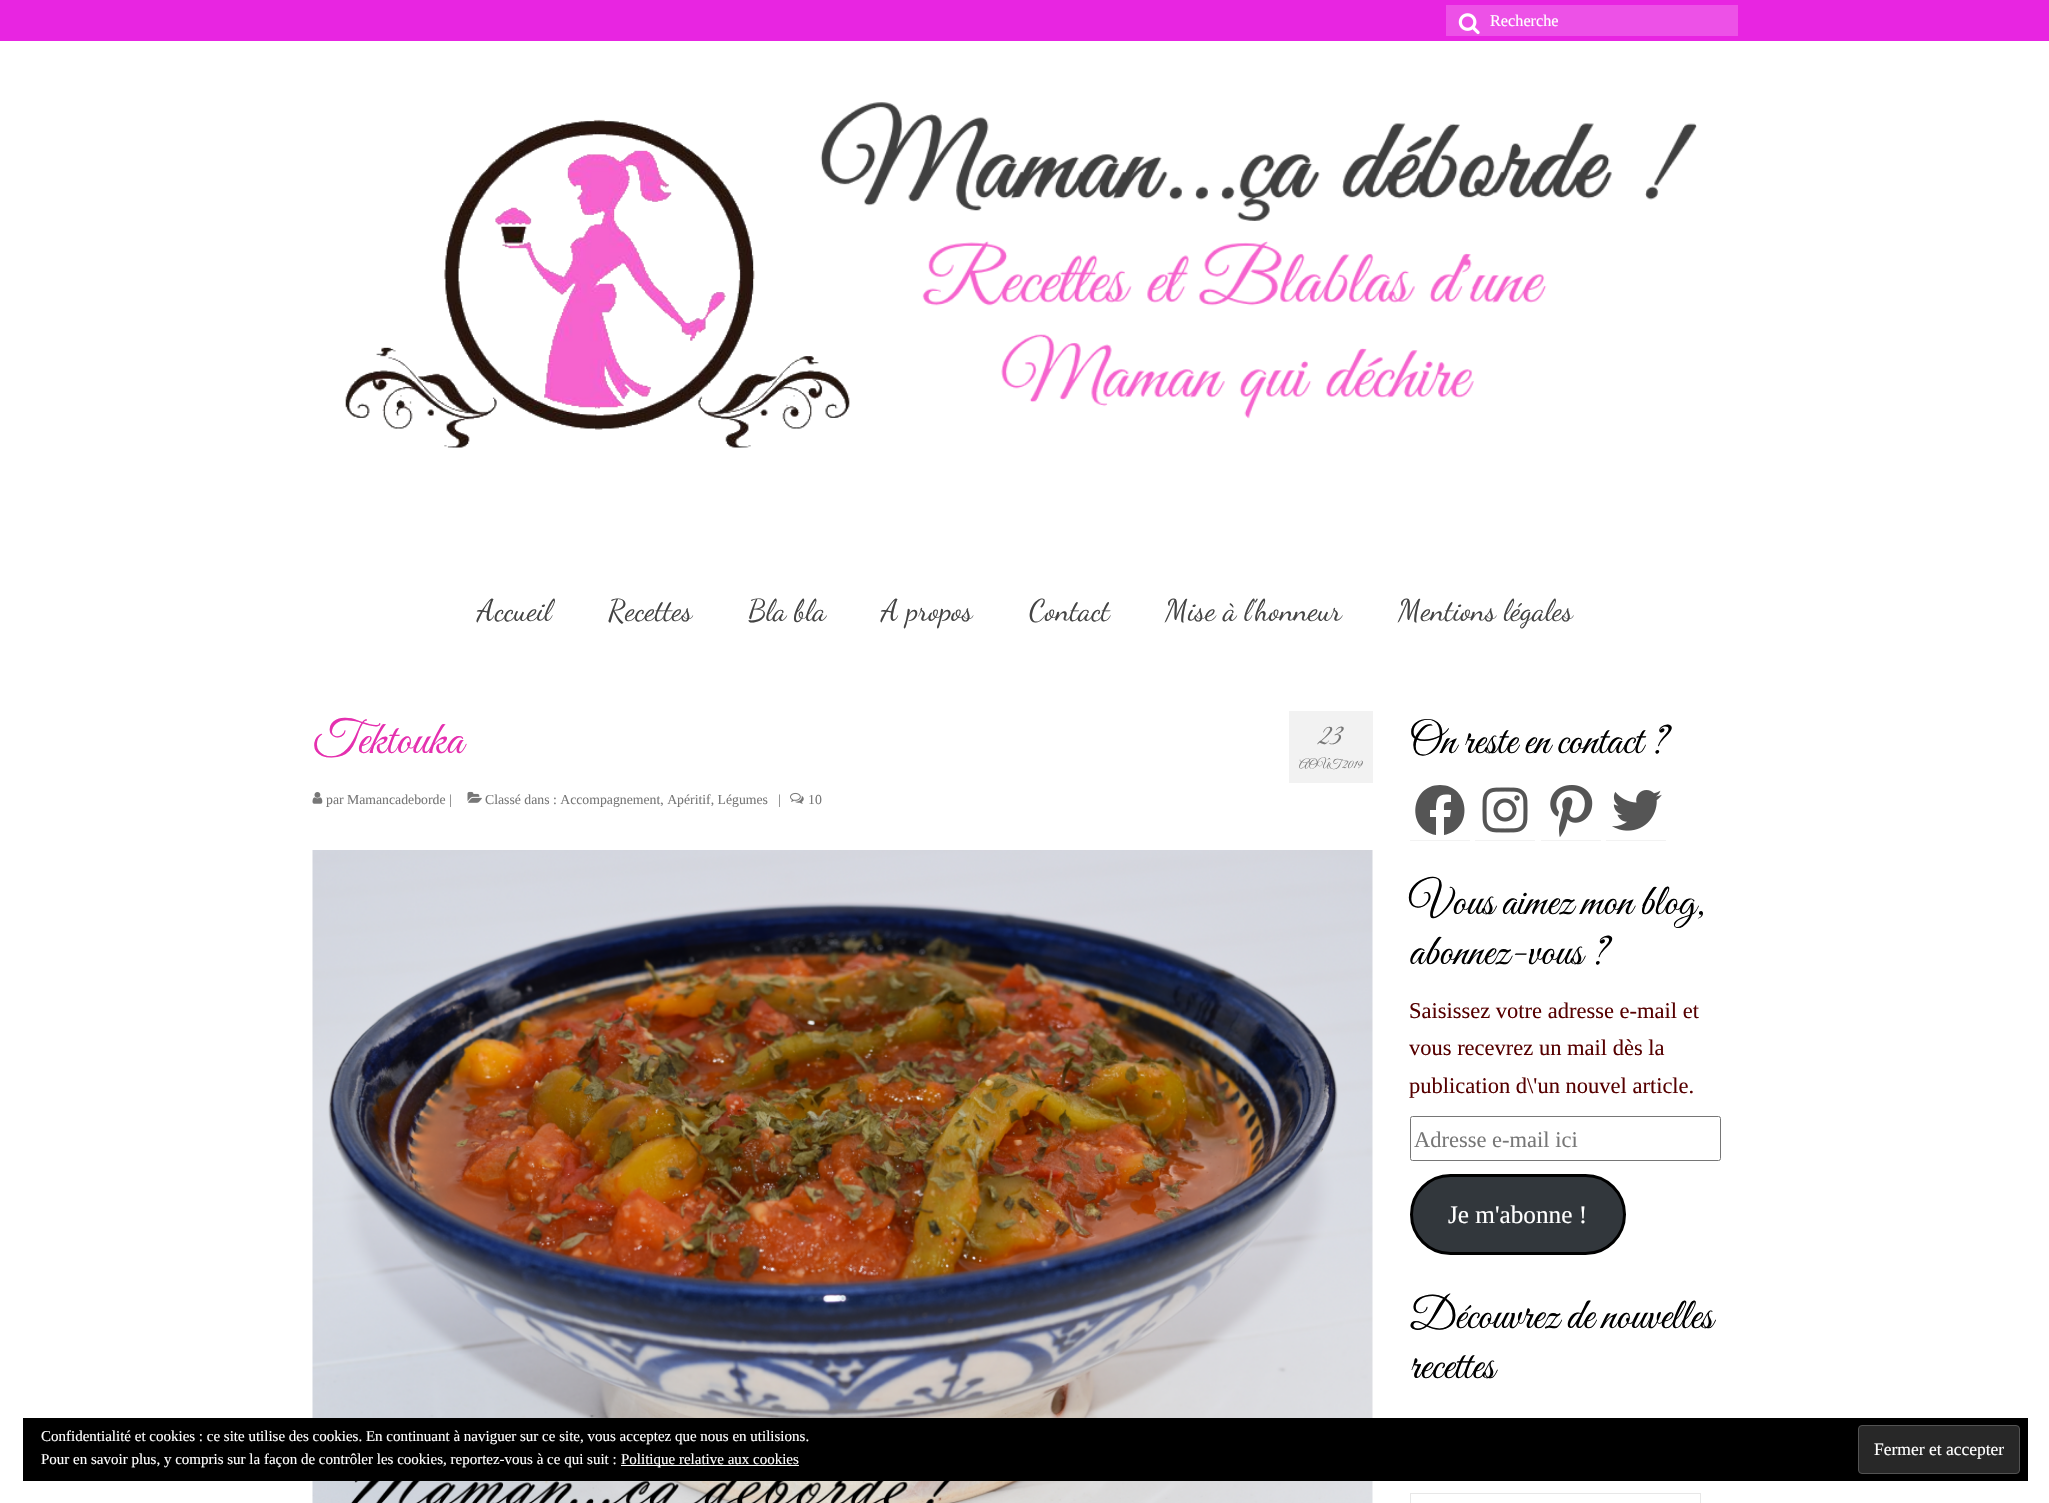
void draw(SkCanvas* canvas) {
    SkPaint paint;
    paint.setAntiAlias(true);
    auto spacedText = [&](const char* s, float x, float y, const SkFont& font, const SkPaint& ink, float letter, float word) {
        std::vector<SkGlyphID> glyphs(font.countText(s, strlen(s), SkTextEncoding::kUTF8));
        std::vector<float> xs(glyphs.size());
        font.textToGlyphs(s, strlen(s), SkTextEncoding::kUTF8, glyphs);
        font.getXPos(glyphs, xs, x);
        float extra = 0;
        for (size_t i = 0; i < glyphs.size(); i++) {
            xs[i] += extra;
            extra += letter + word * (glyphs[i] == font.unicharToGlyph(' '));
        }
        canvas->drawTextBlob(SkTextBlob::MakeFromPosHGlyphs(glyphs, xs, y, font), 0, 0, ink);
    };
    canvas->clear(0xFFFFFFFF);
    paint.setColor(0xFFE825E1);
    canvas->drawRect(SkRect::MakeXYWH(0, 0, 2049, 41), paint);
    paint.setColor(0xFFED51E7);
    canvas->drawRect(SkRect::MakeXYWH(1446, 5, 292, 31), paint);
    canvas->drawImageRect(SkImages::DeferredFromEncodedData(SkData::MakeFromFileName("img1.png")), SkRect::MakeXYWH(1458, 13, 22, 22), SkSamplingOptions());
    SkFont font1(fontMgr->matchFamilyStyle("Liberation Serif", SkFontStyle::Normal()), 16.25f);
    font1.setSubpixel(true);
    paint.setColor(0xFFFFFFFF);
    canvas->drawString("Recherche", 1490, 26, font1, paint);
    canvas->drawImageRect(SkImages::DeferredFromEncodedData(SkData::MakeFromFileName("img2.png")), SkRect::MakeXYWH(345, 102, 1352, 346), SkSamplingOptions());
    SkFont font2(fontMgr->matchFamilyStyle("Dancing Script", SkFontStyle::Normal()), 30);
    font2.setSubpixel(true);
    paint.setColor(0xFF444444);
    canvas->drawString("Accueil", 477, 620, font2, paint);
    canvas->drawString("Recettes", 608, 620, font2, paint);
    canvas->drawString("Bla bla", 748, 620, font2, paint);
    canvas->drawString("A propos", 881, 620, font2, paint);
    canvas->drawString("Contact", 1029, 620, font2, paint);
    canvas->drawString("Mise à l’honneur", 1165, 620, font2, paint);
    canvas->drawString("Mentions légales", 1398, 620, font2, paint);
    SkFont font3(fontMgr->matchFamilyStyle("Great Vibes", SkFontStyle::Normal()), 47.5f);
    font3.setSubpixel(true);
    paint.setColor(0xFFE530AF);
    canvas->drawString("Tektouka", 313, 753, font3, paint);
    canvas->drawImageRect(SkImages::DeferredFromEncodedData(SkData::MakeFromFileName("img3.png")), SkRect::MakeXYWH(312, 792, 11, 12), SkSamplingOptions());
    SkFont font4(fontMgr->matchFamilyStyle("Liberation Serif", SkFontStyle::Normal()), 13.75f);
    font4.setSubpixel(true);
    paint.setColor(0xFF777777);
    canvas->drawString("par Mamancadeborde |", 326, 804, font4, paint);
    canvas->drawImageRect(SkImages::DeferredFromEncodedData(SkData::MakeFromFileName("img4.png")), SkRect::MakeXYWH(467, 791, 15, 12), SkSamplingOptions());
    canvas->drawString("Classé dans : Accompagnement, Apéritif, Légumes", 485, 804, font4, paint);
    canvas->drawString("|", 778, 804, font4, paint);
    canvas->drawImageRect(SkImages::DeferredFromEncodedData(SkData::MakeFromFileName("img5.png")), SkRect::MakeXYWH(790, 792, 14, 12), SkSamplingOptions());
    canvas->drawString("10", 808, 804, font4, paint);
    paint.setColor(0xFFF2F2F2);
    canvas->drawRect(SkRect::MakeXYWH(1289, 711, 84, 72), paint);
    SkFont font5(fontMgr->matchFamilyStyle("Great Vibes", SkFontStyle::Normal()), 30);
    font5.setSubpixel(true);
    paint.setColor(0xFF777777);
    canvas->drawString("23", 1319, 744, font5, paint);
    SkFont font6(fontMgr->matchFamilyStyle("Great Vibes", SkFontStyle::Normal()), 12.5f);
    font6.setSubpixel(true);
    canvas->drawString("AOÛT 2019", 1299, 768, font6, paint);
    canvas->drawImageRect(SkImages::DeferredFromEncodedData(SkData::MakeFromFileName("img6.png")), SkRect::MakeXYWH(312, 850, 1061, 653), SkSamplingOptions());
    SkFont font7(fontMgr->matchFamilyStyle("Great Vibes", SkFontStyle::Normal()), 43.75f);
    font7.setSubpixel(true);
    paint.setColor(0xFF000000);
    spacedText("On reste en contact ?", 1409, 753, font7, paint, 0, -0.5f);
    paint.setColor(0xFFF2F2F2);
    canvas->drawRect(SkRect::MakeXYWH(1410, 840, 60, 1), paint);
    paint.setColor(0xFF555555);
    canvas->drawPath(SkPathBuilder().moveTo(1440, 785).cubicTo(1410, 785, 1406, 830, 1436, 835).lineTo(1436, 817).lineTo(1430, 817).lineTo(1430, 810).lineTo(1436, 810).cubicTo(1436, 798, 1438, 793, 1451, 795).lineTo(1451, 802).cubicTo(1443, 802, 1444, 803, 1444, 810).lineTo(1451, 810).lineTo(1450, 817).lineTo(1444, 817).lineTo(1444, 835).cubicTo(1474, 830, 1470, 785, 1440, 785).close().detach(), paint);
    paint.setColor(0xFFF2F2F2);
    canvas->drawRect(SkRect::MakeXYWH(1475, 840, 60, 1), paint);
    canvas->drawImageRect(SkImages::DeferredFromEncodedData(SkData::MakeFromFileName("img7.png")), SkRect::MakeXYWH(1482, 787, 46, 46), SkSamplingOptions());
    canvas->drawRect(SkRect::MakeXYWH(1541, 840, 60, 1), paint);
    canvas->drawImageRect(SkImages::DeferredFromEncodedData(SkData::MakeFromFileName("img8.png")), SkRect::MakeXYWH(1550, 785, 43, 52), SkSamplingOptions());
    canvas->drawRect(SkRect::MakeXYWH(1606, 840, 60, 1), paint);
    canvas->drawImageRect(SkImages::DeferredFromEncodedData(SkData::MakeFromFileName("img9.png")), SkRect::MakeXYWH(1612, 790, 50, 41), SkSamplingOptions());
    paint.setColor(0xFF000000);
    canvas->drawString("Vous aimez mon blog,", 1409, 914, font7, paint);
    canvas->drawString("abonnez-vous ?", 1409, 964, font7, paint);
    SkFont font8(fontMgr->matchFamilyStyle("Liberation Serif", SkFontStyle::Normal()), 22.5f);
    font8.setSubpixel(true);
    paint.setColor(0xFF560000);
    canvas->drawString("Saisissez votre adresse e-mail et", 1409, 1018, font8, paint);
    canvas->drawString("vous recevrez un mail dès la", 1409, 1055, font8, paint);
    canvas->drawString("publication d\\'un nouvel article.", 1409, 1093, font8, paint);
    paint.setStyle(SkPaint::kStroke_Style);
    paint.setStrokeWidth(1);
    paint.setColor(0xFF767676);
    canvas->drawRoundRect(SkRect::MakeXYWH(1410.5f, 1116.5f, 310, 44), 2, 2, paint);
    paint.setStyle(SkPaint::kFill_Style);
    paint.setColor(0xFF777777);
    canvas->drawString("Adresse e-mail ici", 1414, 1147, font8, paint);
    paint.setColor(0xFF32373C);
    canvas->drawRoundRect(SkRect::MakeXYWH(1411.5f, 1175.5f, 213, 78), 39, 39, paint);
    paint.setStyle(SkPaint::kStroke_Style);
    paint.setStrokeWidth(3);
    paint.setColor(0xFF000000);
    canvas->drawRoundRect(SkRect::MakeXYWH(1411.5f, 1175.5f, 213, 78), 39, 39, paint);
    SkFont font9(fontMgr->matchFamilyStyle("Liberation Serif", SkFontStyle::Normal()), 25.25f);
    font9.setSubpixel(true);
    paint.setStyle(SkPaint::kFill_Style);
    paint.setColor(0xFFFFFFFF);
    canvas->drawString("Je m'abonne !", 1448, 1223, font9, paint);
    paint.setColor(0xFF000000);
    canvas->drawString("Découvrez de nouvelles", 1409, 1328, font7, paint);
    canvas->drawString("recettes", 1409, 1378, font7, paint);
    paint.setStyle(SkPaint::kStroke_Style);
    paint.setStrokeWidth(1);
    paint.setColor(0xFFE7E7E7);
    canvas->drawRect(SkRect::MakeXYWH(1410.5f, 1493.5f, 290, 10), paint);
    paint.setStyle(SkPaint::kFill_Style);
    paint.setColor(0xFF000000);
    canvas->drawRect(SkRect::MakeXYWH(23, 1418, 2005, 63), paint);
    SkFont font10(fontMgr->matchFamilyStyle("Liberation Serif", SkFontStyle::Normal()), 15);
    font10.setSubpixel(true);
    paint.setColor(0xFFFFFFFF);
    canvas->drawString("Confidentialité et cookies : ce site utilise des cookies. En continuant à naviguer sur ce site, vous acceptez que nous en utilisions.", 41, 1441, font10, paint);
    paint.setColor(0xFF282828);
    canvas->drawRoundRect(SkRect::MakeXYWH(1858.5f, 1425.5f, 161, 48), 3.5f, 3.5f, paint);
    paint.setStyle(SkPaint::kStroke_Style);
    paint.setColor(0xFF535353);
    canvas->drawRoundRect(SkRect::MakeXYWH(1858.5f, 1425.5f, 161, 48), 3.5f, 3.5f, paint);
    SkFont font11(fontMgr->matchFamilyStyle("Liberation Serif", SkFontStyle::Normal()), 17.5f);
    font11.setSubpixel(true);
    paint.setStyle(SkPaint::kFill_Style);
    paint.setColor(0xFFFFFFFF);
    canvas->drawString("Fermer et accepter", 1874, 1455, font11, paint);
    canvas->drawString("Pour en savoir plus, y compris sur la façon de contrôler les cookies, reportez-vous à ce qui suit :", 41, 1464, font10, paint);
    canvas->drawRect(SkRect::MakeXYWH(621, 1465, 178, 1), paint);
    canvas->drawString("Politique relative aux cookies", 621, 1464, font10, paint);
}
